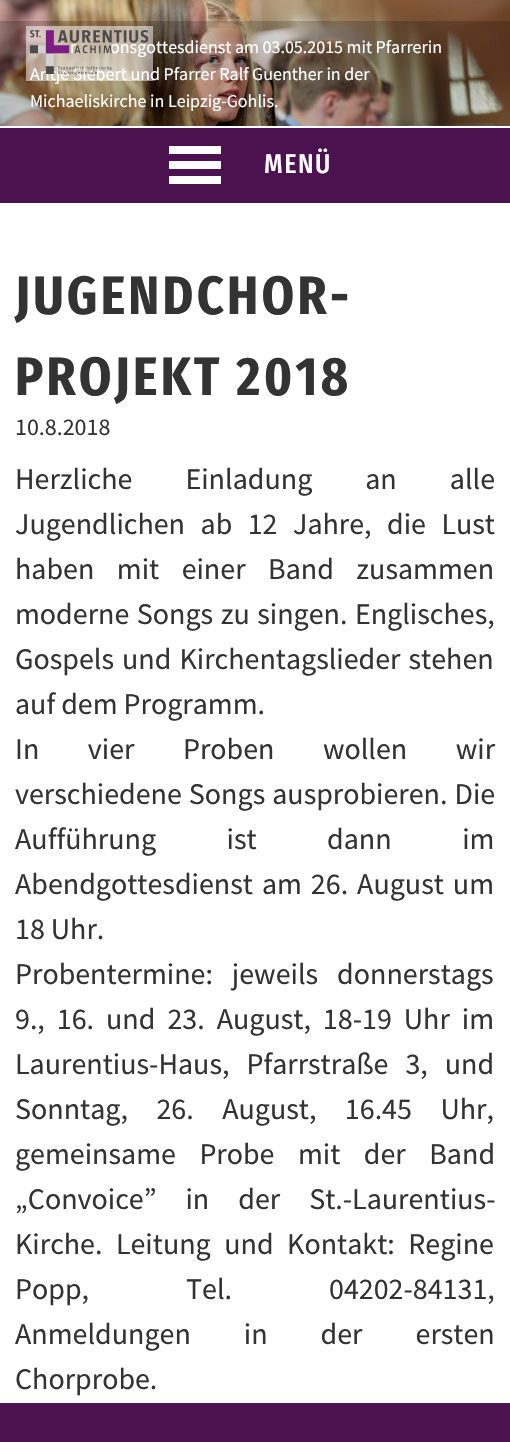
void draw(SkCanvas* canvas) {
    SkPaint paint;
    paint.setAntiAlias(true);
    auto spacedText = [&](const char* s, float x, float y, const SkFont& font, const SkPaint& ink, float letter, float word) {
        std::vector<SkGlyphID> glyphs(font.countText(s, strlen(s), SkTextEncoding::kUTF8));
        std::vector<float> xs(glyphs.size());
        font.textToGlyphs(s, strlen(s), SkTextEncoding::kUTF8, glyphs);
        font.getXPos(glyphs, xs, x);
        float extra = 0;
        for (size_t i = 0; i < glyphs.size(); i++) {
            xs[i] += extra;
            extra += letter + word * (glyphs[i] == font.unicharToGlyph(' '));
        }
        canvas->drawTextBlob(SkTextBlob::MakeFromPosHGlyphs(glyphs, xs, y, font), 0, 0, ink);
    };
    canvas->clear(0xFFFFFFFF);
    canvas->drawImageRect(SkImages::DeferredFromEncodedData(SkData::MakeFromFileName("img1.png")), SkRect::MakeXYWH(0, 0, 510, 126), SkSamplingOptions());
    paint.setColor(0x33000000);
    canvas->drawRect(SkRect::MakeXYWH(0, 21, 510, 105), paint);
    SkFont font1(fontMgr->matchFamilyStyle("Source Sans Pro", SkFontStyle::Normal()), 18);
    font1.setSubpixel(true);
    paint.setColor(0xFFFFFFFF);
    canvas->drawString("r", 70, 53, font1, paint);
    canvas->drawString("onsgottesdienst am 03.05.2015 mit Pfarrerin", 110, 53, font1, paint);
    canvas->drawString("Antje Siebert und Pfarrer Ralf Guenther in der", 30, 80, font1, paint);
    paint.setColor(0x80FFFFFF);
    canvas->drawRect(SkRect::MakeXYWH(26, 26, 127, 55), paint);
    canvas->drawImageRect(SkImages::DeferredFromEncodedData(SkData::MakeFromFileName("img2.png")), SkRect::MakeXYWH(30, 30, 119, 45), SkSamplingOptions());
    paint.setColor(0xFFFFFFFF);
    canvas->drawString("Michaeliskirche in Leipzig-Gohlis.", 30, 107, font1, paint);
    paint.setColor(0xFF4C114F);
    canvas->drawRect(SkRect::MakeXYWH(0, 128, 510, 75), paint);
    paint.setColor(0xFFFFFFFF);
    canvas->drawPath(SkPathBuilder().moveTo(169, 184).lineTo(221, 184).lineTo(221, 176).lineTo(169, 176).close().moveTo(169, 146).lineTo(169, 154).lineTo(221, 154).lineTo(221, 146).close().moveTo(169, 169).lineTo(221, 169).lineTo(221, 161).lineTo(169, 161).close().detach(), paint);
    SkFont font2(fontMgr->matchFamilyStyle("Fira Sans Condensed", SkFontStyle(500, SkFontStyle::kNormal_Width, SkFontStyle::kUpright_Slant)), 27);
    font2.setSubpixel(true);
    spacedText("MENÜ", 264, 173, font2, paint, 1.5f, 0);
    SkFont font3(fontMgr->matchFamilyStyle("Fira Sans Condensed", SkFontStyle::Bold()), 54);
    font3.setSubpixel(true);
    paint.setColor(0xFF333333);
    spacedText("JUGENDCHOR-", 15, 314, font3, paint, 3.25f, 0);
    spacedText("PROJEKT 2018", 15, 395, font3, paint, 3.25f, 0);
    SkFont font4(fontMgr->matchFamilyStyle("Source Sans Pro", SkFontStyle::Normal()), 24);
    font4.setSubpixel(true);
    canvas->drawString("10.8.2018", 15, 435, font4, paint);
    SkFont font5(fontMgr->matchFamilyStyle("Source Sans Pro", SkFontStyle::Normal()), 30);
    font5.setSubpixel(true);
    spacedText("Herzliche Einladung an alle", 15, 489, font5, paint, 0, 47);
    spacedText("Jugendlichen ab 12 Jahre, die Lust", 15, 534, font5, paint, 0, 9.5f);
    spacedText("haben mit einer Band zusammen", 15, 579, font5, paint, 0, 16.5f);
    spacedText("moderne Songs zu singen. Englisches,", 15, 624, font5, paint, 0, 1.5f);
    spacedText("Gospels und Kirchentagslieder stehen", 15, 669, font5, paint, 0, 2);
    canvas->drawString("auf dem Programm.", 15, 714, font5, paint);
    spacedText("In vier Proben wollen wir", 15, 759, font5, paint, 0, 42.5f);
    spacedText("verschiedene Songs ausprobieren. Die", 15, 804, font5, paint, 0, 1);
    spacedText("Aufführung ist dann im", 15, 849, font5, paint, 0, 64.5f);
    spacedText("Abendgottesdienst am 26. August um", 15, 894, font5, paint, 0, 3);
    canvas->drawString("18 Uhr.", 15, 939, font5, paint);
    spacedText("Probentermine: jeweils donnerstags", 15, 984, font5, paint, 0, 13);
    spacedText("9., 16. und 23. August, 18-19 Uhr im", 15, 1029, font5, paint, 0, 6);
    spacedText("Laurentius-Haus, Pfarrstraße 3, und", 15, 1074, font5, paint, 0, 11);
    spacedText("Sonntag, 26. August, 16.45 Uhr,", 15, 1119, font5, paint, 0, 22.5f);
    spacedText("gemeinsame Probe mit der Band", 15, 1164, font5, paint, 0, 17.5f);
    spacedText("„Convoice” in der St.-Laurentius-", 15, 1209, font5, paint, 0, 23);
    spacedText("Kirche. Leitung und Kontakt: Regine", 15, 1254, font5, paint, 0, 7.5f);
    spacedText("Popp, Tel. 04202-84131,", 15, 1299, font5, paint, 0, 91);
    spacedText("Anmeldungen in der ersten", 15, 1344, font5, paint, 0, 47);
    canvas->drawString("Chorprobe.", 15, 1389, font5, paint);
    paint.setColor(0xFF4C114F);
    canvas->drawRect(SkRect::MakeXYWH(0, 1403, 510, 39), paint);
}
